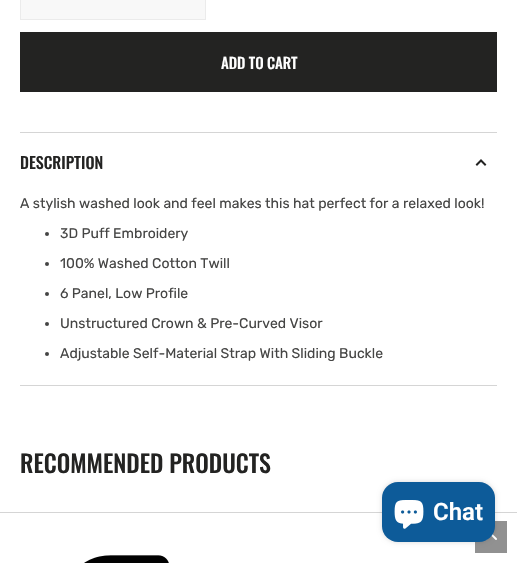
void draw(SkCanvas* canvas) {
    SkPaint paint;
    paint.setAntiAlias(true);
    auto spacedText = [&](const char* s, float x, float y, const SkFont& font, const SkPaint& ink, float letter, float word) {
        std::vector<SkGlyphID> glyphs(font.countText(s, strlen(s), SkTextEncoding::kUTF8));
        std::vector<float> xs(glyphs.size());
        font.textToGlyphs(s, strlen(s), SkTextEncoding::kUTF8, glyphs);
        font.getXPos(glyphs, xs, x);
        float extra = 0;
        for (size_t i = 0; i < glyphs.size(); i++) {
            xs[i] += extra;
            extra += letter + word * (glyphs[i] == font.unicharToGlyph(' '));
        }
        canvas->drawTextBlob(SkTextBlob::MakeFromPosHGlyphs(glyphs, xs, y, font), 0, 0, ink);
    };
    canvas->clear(0xFFFFFFFF);
    paint.setColor(0xFFF8F8F8);
    canvas->drawRect(SkRect::MakeXYWH(20.5f, -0.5f, 185, 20), paint);
    paint.setStyle(SkPaint::kStroke_Style);
    paint.setStrokeWidth(1);
    paint.setColor(0xFFEBEBEB);
    canvas->drawRect(SkRect::MakeXYWH(20.5f, -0.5f, 185, 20), paint);
    paint.setStyle(SkPaint::kFill_Style);
    paint.setColor(0xFF232322);
    canvas->drawRect(SkRect::MakeXYWH(20, 32, 477, 60), paint);
    SkFont font1(fontMgr->matchFamilyStyle("Oswald", SkFontStyle(500, SkFontStyle::kNormal_Width, SkFontStyle::kUpright_Slant)), 15);
    font1.setSubpixel(true);
    paint.setColor(0xFFFFFFFF);
    spacedText("ADD TO CART", 221, 69, font1, paint, -0.1f, 0);
    paint.setColor(0xFFD5D5D5);
    canvas->drawRect(SkRect::MakeXYWH(20, 132, 477, 1), paint);
    canvas->drawRect(SkRect::MakeXYWH(20, 385, 477, 1), paint);
    SkFont font2(fontMgr->matchFamilyStyle("Oswald", SkFontStyle(500, SkFontStyle::kNormal_Width, SkFontStyle::kUpright_Slant)), 16);
    font2.setSubpixel(true);
    paint.setColor(0xFF232322);
    canvas->drawString("DESCRIPTION", 20, 169, font2, paint);
    paint.setStyle(SkPaint::kStroke_Style);
    paint.setStrokeWidth(2);
    paint.setStrokeCap(SkPaint::kSquare_Cap);
    canvas->drawPath(SkPathBuilder().moveTo(477, 164.5f).lineTo(481, 160.5f).lineTo(485, 164.5f).detach(), paint);
    SkFont font3(fontMgr->matchFamilyStyle("Rubik", SkFontStyle::Normal()), 14);
    font3.setSubpixel(true);
    paint.setStyle(SkPaint::kFill_Style);
    paint.setColor(0xFF454544);
    canvas->drawString("A stylish washed look and feel makes this hat perfect for a relaxed look!", 20, 208, font3, paint);
    canvas->drawCircle(47, 234, 2, paint);
    canvas->drawString("3D Puff Embroidery", 60, 238, font3, paint);
    canvas->drawCircle(47, 264, 2, paint);
    canvas->drawString("100% Washed Cotton Twill", 60, 268, font3, paint);
    canvas->drawCircle(47, 294, 2, paint);
    canvas->drawString("6 Panel, Low Profile", 60, 298, font3, paint);
    canvas->drawCircle(47, 324, 2, paint);
    canvas->drawString("Unstructured Crown & Pre-Curved Visor", 60, 328, font3, paint);
    canvas->drawCircle(47, 354, 2, paint);
    canvas->drawString("Adjustable Self-Material Strap With Sliding Buckle", 60, 358, font3, paint);
    SkFont font4(fontMgr->matchFamilyStyle("Oswald", SkFontStyle(500, SkFontStyle::kNormal_Width, SkFontStyle::kUpright_Slant)), 24);
    font4.setSubpixel(true);
    paint.setColor(0xFF232322);
    canvas->drawString("RECOMMENDED PRODUCTS", 20, 473, font4, paint);
    paint.setColor(0xFFD5D5D5);
    canvas->drawRect(SkRect::MakeXYWH(0, 512, 517, 1), paint);
    paint.setColor(0xFF919191);
    canvas->drawRect(SkRect::MakeXYWH(475, 521, 32, 32), paint);
    canvas->drawImageRect(SkImages::DeferredFromEncodedData(SkData::MakeFromFileName("img3.png")), SkRect::MakeXYWH(486, 533, 11, 7), SkSamplingOptions());
    paint.setColor(0x26000000);
    paint.setMaskFilter(SkMaskFilter::MakeBlur(kNormal_SkBlurStyle, 2.5f));
    canvas->drawRoundRect(SkRect::MakeXYWH(382, 482, 113, 60), 16, 16, paint);
    paint.setMaskFilter(nullptr);
    paint.setColor(0xFF0D5B99);
    canvas->drawRoundRect(SkRect::MakeXYWH(382, 482, 113, 60), 16, 16, paint);
    canvas->drawImageRect(SkImages::DeferredFromEncodedData(SkData::MakeFromFileName("img1.png")), SkRect::MakeXYWH(394, 500, 30, 29), SkSamplingOptions());
    SkFont font5(fontMgr->matchFamilyStyle("Roboto", SkFontStyle(600, SkFontStyle::kNormal_Width, SkFontStyle::kUpright_Slant)), 24);
    font5.setSubpixel(true);
    paint.setColor(0xFFFFFFFF);
    canvas->drawString("Chat", 433, 520, font5, paint);
    canvas->drawImageRect(SkImages::DeferredFromEncodedData(SkData::MakeFromFileName("img2.png")), SkRect::MakeXYWH(84, 555, 85, 8), SkSamplingOptions());
}
